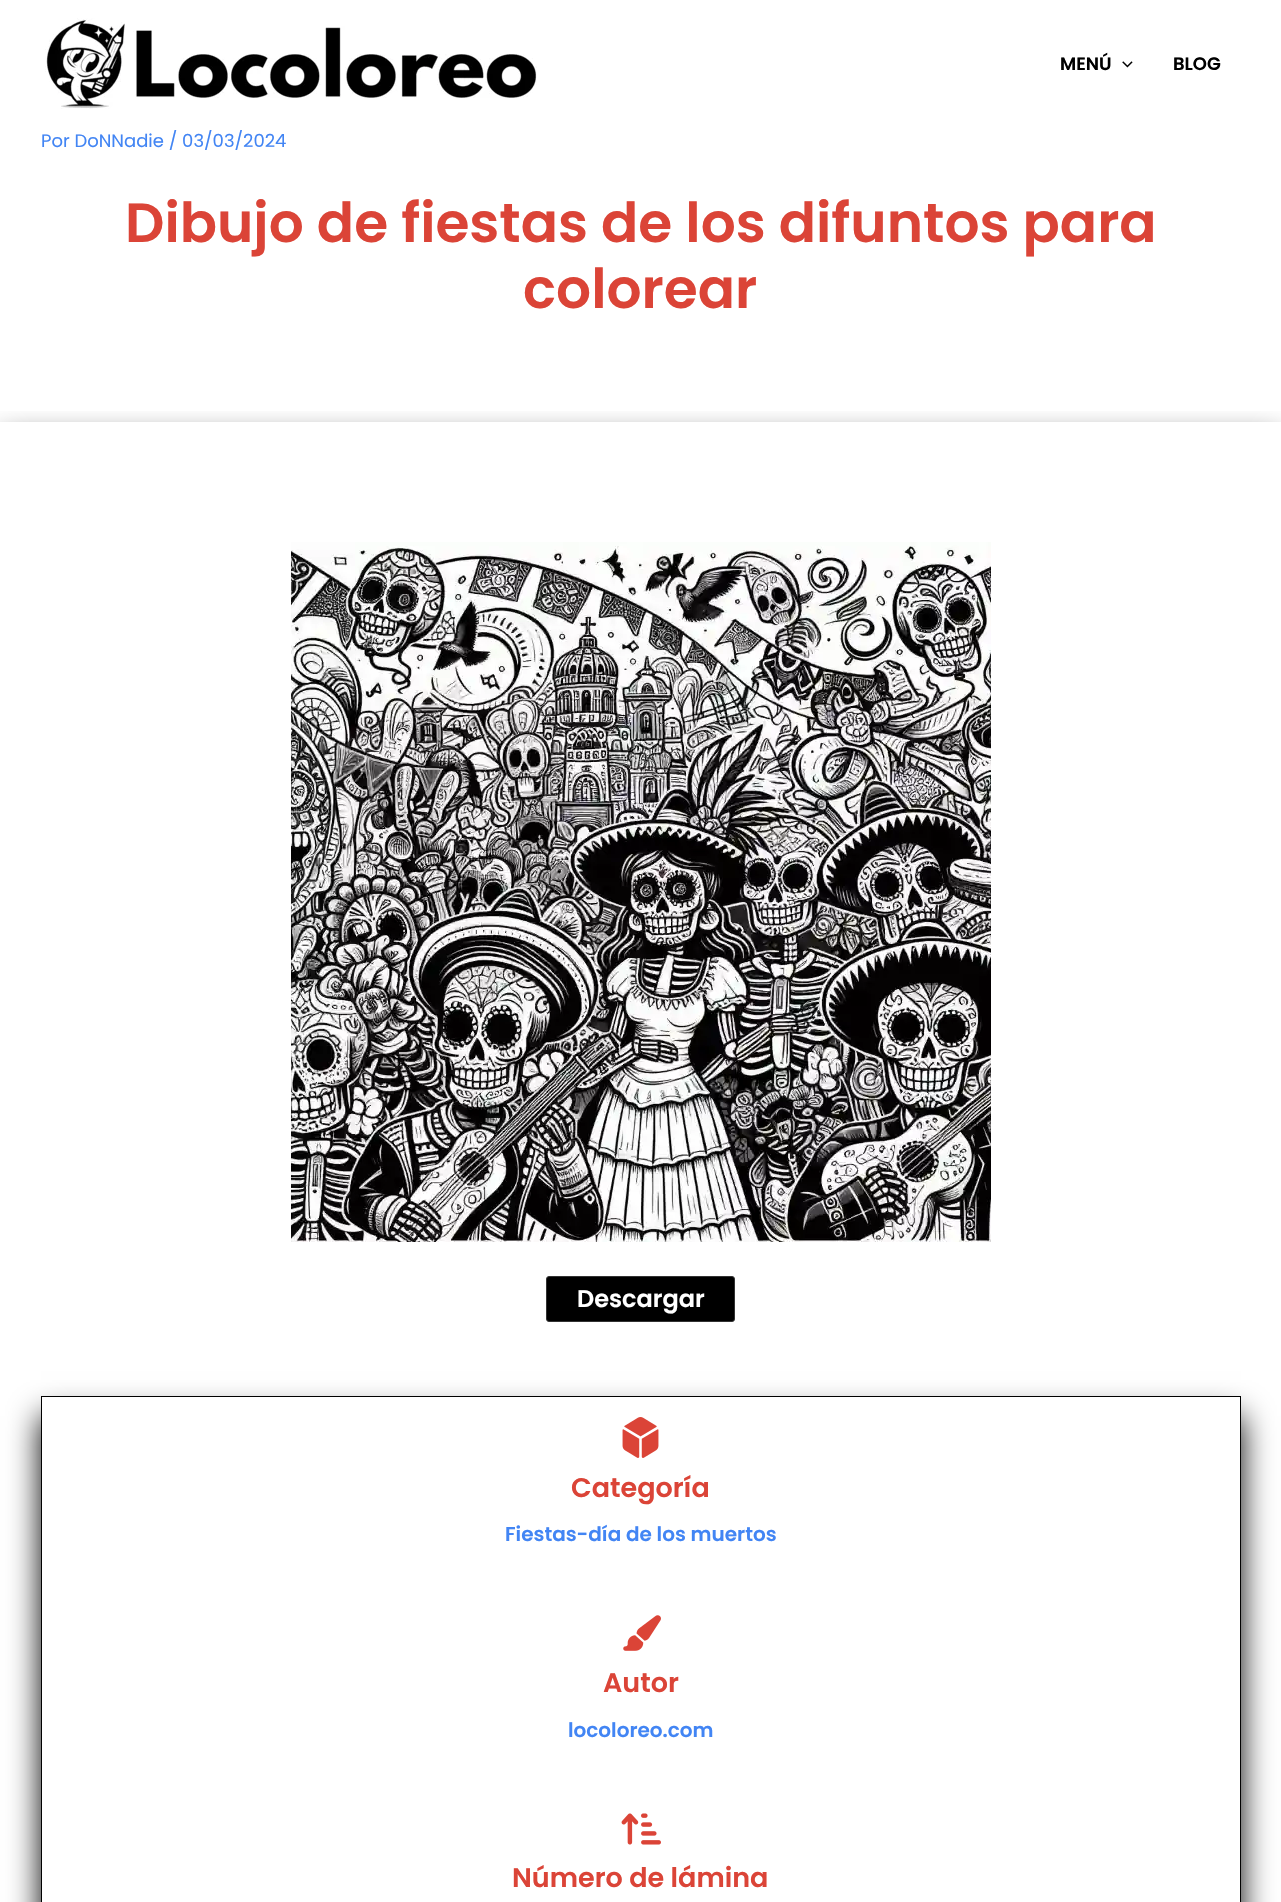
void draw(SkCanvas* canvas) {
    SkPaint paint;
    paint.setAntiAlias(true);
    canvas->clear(0xFFFFFFFF);
    canvas->drawImageRect(SkImages::DeferredFromEncodedData(SkData::MakeFromFileName("img1.png")), SkRect::MakeXYWH(45, 18, 492, 91), SkSamplingOptions());
    SkFont font1(fontMgr->matchFamilyStyle("Poppins", SkFontStyle(600, SkFontStyle::kNormal_Width, SkFontStyle::kUpright_Slant)), 18);
    font1.setSubpixel(true);
    paint.setColor(0xFF000000);
    canvas->drawString("MENÚ", 1060, 70, font1, paint);
    canvas->drawImageRect(SkImages::DeferredFromEncodedData(SkData::MakeFromFileName("img2.png")), SkRect::MakeXYWH(1122, 61, 11, 7), SkSamplingOptions());
    canvas->drawString("BLOG", 1173, 70, font1, paint);
    SkFont font2(fontMgr->matchFamilyStyle("Poppins", SkFontStyle::Normal()), 18);
    font2.setSubpixel(true);
    paint.setColor(0xFF4285F4);
    canvas->drawString("Por DoNNadie / 03/03/2024", 41, 147, font2, paint);
    SkFont font3(fontMgr->matchFamilyStyle("Poppins", SkFontStyle(600, SkFontStyle::kNormal_Width, SkFontStyle::kUpright_Slant)), 55);
    font3.setSubpixel(true);
    paint.setColor(0xFFDB4437);
    canvas->drawString("Dibujo de fiestas de los difuntos para", 125, 242, font3, paint);
    canvas->drawString("colorear", 523, 308, font3, paint);
    canvas->save();
    canvas->clipRect(SkRect::MakeXYWH(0, 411, 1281, 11));
    paint.setColor(0xFF000000);
    paint.setMaskFilter(SkMaskFilter::MakeBlur(kNormal_SkBlurStyle, 15));
    canvas->drawRect(SkRect::MakeXYWH(0, 442, 1281, 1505), paint);
    paint.setMaskFilter(nullptr);
    canvas->restore();
    canvas->drawImageRect(SkImages::DeferredFromEncodedData(SkData::MakeFromFileName("img3.png")), SkRect::MakeXYWH(291, 542, 700, 700), SkSamplingOptions());
    canvas->drawRoundRect(SkRect::MakeXYWH(546.5f, 1276.5f, 188, 45), 2.5f, 2.5f, paint);
    paint.setStyle(SkPaint::kStroke_Style);
    paint.setStrokeWidth(1);
    paint.setColor(0xFF333333);
    canvas->drawRoundRect(SkRect::MakeXYWH(546.5f, 1276.5f, 188, 45), 2.5f, 2.5f, paint);
    SkFont font4(fontMgr->matchFamilyStyle("Poppins", SkFontStyle(600, SkFontStyle::kNormal_Width, SkFontStyle::kUpright_Slant)), 24);
    font4.setSubpixel(true);
    paint.setStyle(SkPaint::kFill_Style);
    paint.setColor(0xFFFFFFFF);
    canvas->drawString("Descargar", 577, 1307, font4, paint);
    canvas->save();
    canvas->clipPath(SkPathBuilder(SkPathFillType::kEvenOdd).moveTo(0, 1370).lineTo(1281, 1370).lineTo(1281, 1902).lineTo(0, 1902).close().moveTo(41, 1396).lineTo(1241, 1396).lineTo(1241, 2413).lineTo(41, 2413).close().detach(), true);
    paint.setColor(0xFF000000);
    paint.setMaskFilter(SkMaskFilter::MakeBlur(kNormal_SkBlurStyle, 15));
    canvas->drawRect(SkRect::MakeXYWH(41, 1416, 1200, 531), paint);
    paint.setMaskFilter(nullptr);
    canvas->restore();
    paint.setStyle(SkPaint::kStroke_Style);
    canvas->drawRect(SkRect::MakeXYWH(41.5f, 1396.5f, 1199, 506), paint);
    canvas->drawImageRect(SkImages::DeferredFromEncodedData(SkData::MakeFromFileName("img4.png")), SkRect::MakeXYWH(622, 1417, 37, 41), SkSamplingOptions());
    SkFont font5(fontMgr->matchFamilyStyle("Poppins", SkFontStyle(600, SkFontStyle::kNormal_Width, SkFontStyle::kUpright_Slant)), 27);
    font5.setSubpixel(true);
    paint.setStyle(SkPaint::kFill_Style);
    paint.setColor(0xFFDB4437);
    canvas->drawString("Categoría", 571, 1497, font5, paint);
    SkFont font6(fontMgr->matchFamilyStyle("Poppins", SkFontStyle(600, SkFontStyle::kNormal_Width, SkFontStyle::kUpright_Slant)), 20);
    font6.setSubpixel(true);
    paint.setColor(0xFF4285F4);
    canvas->drawString("Fiestas-día de los muertos", 505, 1541, font6, paint);
    canvas->drawImageRect(SkImages::DeferredFromEncodedData(SkData::MakeFromFileName("img5.png")), SkRect::MakeXYWH(623, 1615, 38, 36), SkSamplingOptions());
    paint.setColor(0xFFDB4437);
    canvas->drawString("Autor", 603, 1692, font5, paint);
    paint.setColor(0xFF4285F4);
    canvas->drawString("locoloreo.com", 568, 1737, font6, paint);
    canvas->drawImageRect(SkImages::DeferredFromEncodedData(SkData::MakeFromFileName("img6.png")), SkRect::MakeXYWH(621, 1813, 40, 32), SkSamplingOptions());
    paint.setColor(0xFFDB4437);
    canvas->drawString("Número de lámina", 512, 1887, font5, paint);
}
